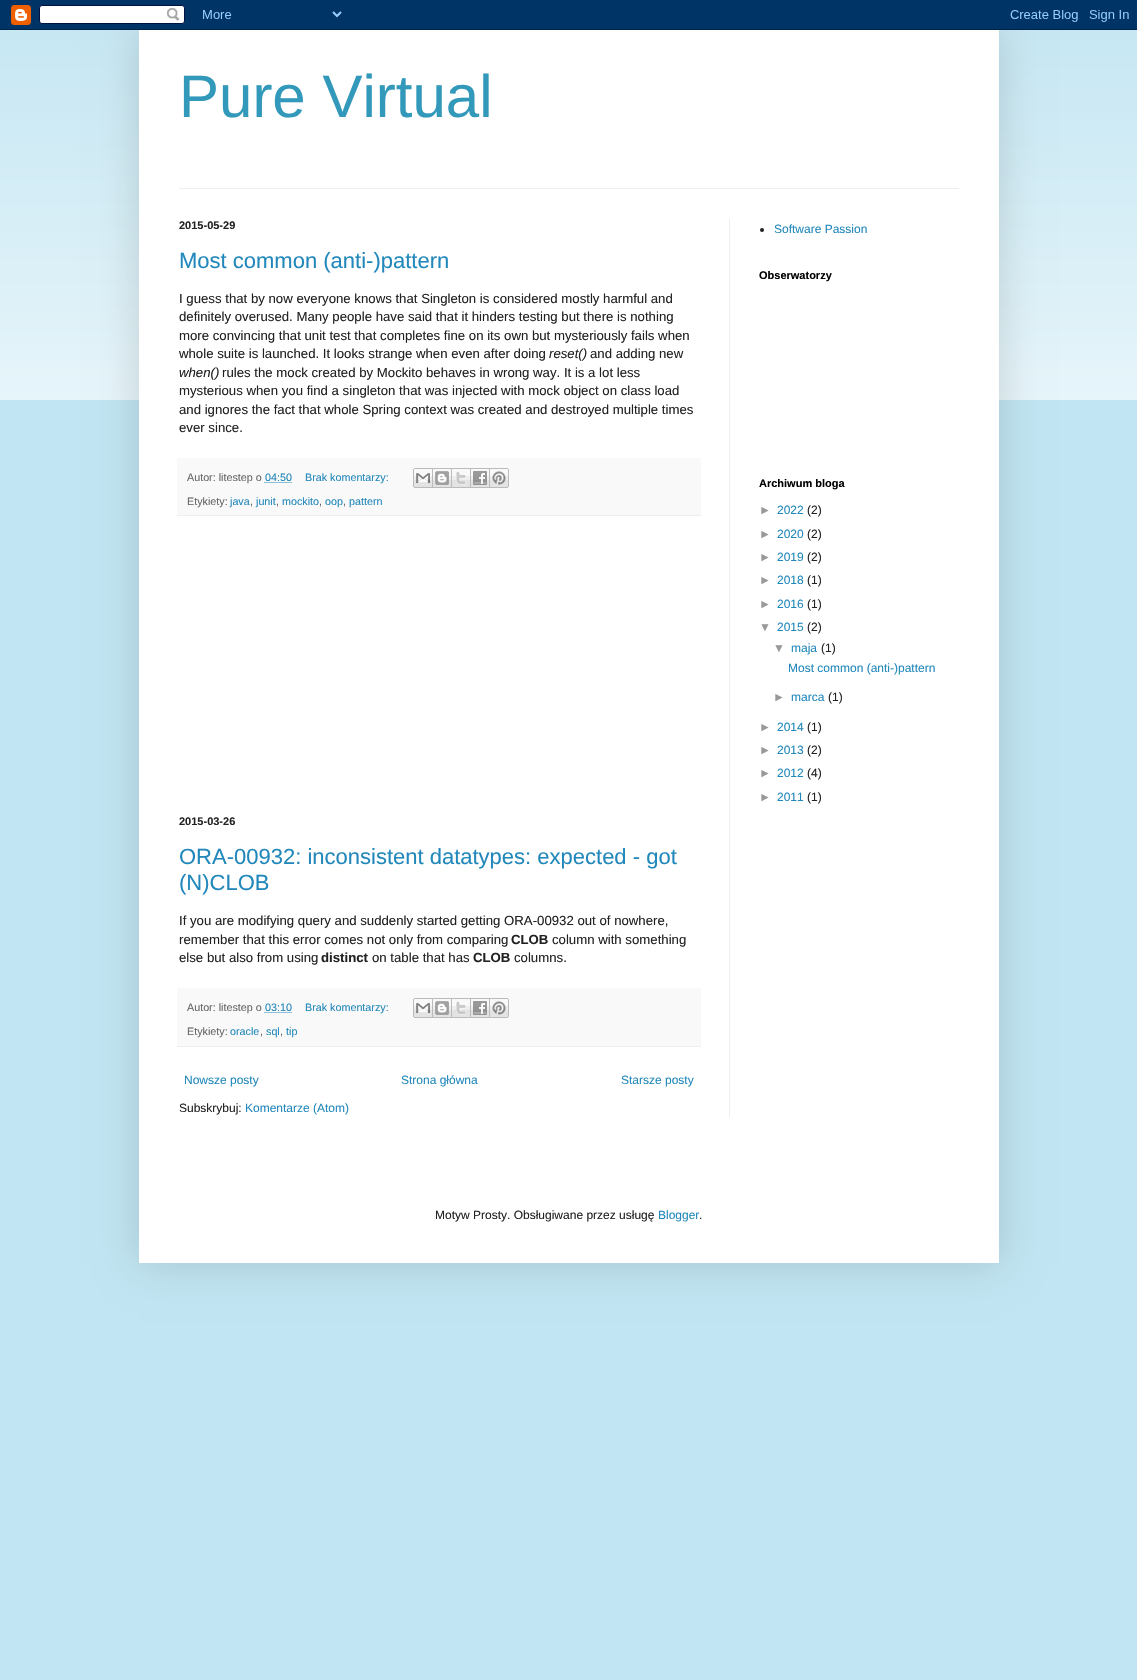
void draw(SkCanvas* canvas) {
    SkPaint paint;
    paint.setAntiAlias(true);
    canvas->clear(0xFFC1E5F2);
    canvas->drawImageRect(SkImages::DeferredFromEncodedData(SkData::MakeFromFileName("img2.png")), SkRect::MakeXYWH(0, 30, 1137, 370), SkSamplingOptions());
    paint.setColor(0x26000000);
    paint.setMaskFilter(SkMaskFilter::MakeBlur(kNormal_SkBlurStyle, 20));
    canvas->drawRect(SkRect::MakeXYWH(139, 30, 860, 1233), paint);
    paint.setMaskFilter(nullptr);
    canvas->drawImageRect(SkImages::DeferredFromEncodedData(SkData::MakeFromFileName("img1.png")), SkRect::MakeXYWH(0, 0, 1137, 30), SkSamplingOptions());
    paint.setColor(0xFFFFFFFF);
    canvas->drawRect(SkRect::MakeXYWH(139, 30, 860, 1233), paint);
    SkFont font1(fontMgr->matchFamilyStyle("Liberation Sans", SkFontStyle::Normal()), 60);
    font1.setSubpixel(true);
    paint.setColor(0xFF3399BB);
    canvas->drawString("Pure Virtual", 179, 117, font1, paint);
    paint.setColor(0xFFEEEEEE);
    canvas->drawRect(SkRect::MakeXYWH(179, 188, 780, 1), paint);
    canvas->drawRect(SkRect::MakeXYWH(729, 219, 1, 898), paint);
    SkFont font2(fontMgr->matchFamilyStyle("Liberation Sans", SkFontStyle::Bold()), 11);
    font2.setSubpixel(true);
    paint.setColor(0xFF222222);
    canvas->drawString("2015-05-29", 179, 229, font2, paint);
    SkFont font3(fontMgr->matchFamilyStyle("Liberation Sans", SkFontStyle::Normal()), 22);
    font3.setSubpixel(true);
    paint.setColor(0xFF2288BB);
    canvas->drawString("Most common (anti-)pattern", 179, 268, font3, paint);
    SkFont font4(fontMgr->matchFamilyStyle("Liberation Sans", SkFontStyle::Normal()), 13.2f);
    font4.setSubpixel(true);
    paint.setColor(0xFF222222);
    canvas->drawString("I guess that by now everyone knows that Singleton is considered mostly harmful and", 179, 303, font4, paint);
    canvas->drawString("definitely overused. Many people have said that it hinders testing but there is nothing", 179, 321, font4, paint);
    canvas->drawString("more convincing that unit test that completes fine on its own but mysteriously fails when", 179, 340, font4, paint);
    canvas->drawString("whole suite is launched. It looks strange when even after doing", 179, 358, font4, paint);
    SkFont font5(fontMgr->matchFamilyStyle("Liberation Sans", SkFontStyle::Italic()), 13.2f);
    font5.setSubpixel(true);
    canvas->drawString("reset()", 549, 358, font5, paint);
    canvas->drawString("and adding new", 590, 358, font4, paint);
    canvas->drawString("when()", 179, 377, font5, paint);
    canvas->drawString("rules the mock created by Mockito behaves in wrong way. It is a lot less", 222, 377, font4, paint);
    canvas->drawString("mysterious when you find a singleton that was injected with mock object on class load", 179, 395, font4, paint);
    canvas->drawString("and ignores the fact that whole Spring context was created and destroyed multiple times", 179, 414, font4, paint);
    canvas->drawString("ever since.", 179, 432, font4, paint);
    paint.setColor(0xFFF9F9F9);
    canvas->drawRect(SkRect::MakeXYWH(177, 458, 524, 57), paint);
    paint.setColor(0xFFEEEEEE);
    canvas->drawRect(SkRect::MakeXYWH(177, 515, 524, 1), paint);
    SkFont font6(fontMgr->matchFamilyStyle("Liberation Sans", SkFontStyle::Normal()), 10.75f);
    font6.setSubpixel(true);
    paint.setColor(0xFF666666);
    canvas->drawString("Autor: litestep o", 187, 481, font6, paint);
    paint.setColor(0xFF2288BB);
    canvas->drawString("04:50", 265, 481, font6, paint);
    paint.setStyle(SkPaint::kStroke_Style);
    paint.setStrokeWidth(1);
    paint.setPathEffect(SkDashPathEffect::Make({{1, 1}}, 0));
    canvas->drawPath(SkPathBuilder().moveTo(264.5f, 482.5f).lineTo(291.5f, 482.5f).detach(), paint);
    paint.setPathEffect(nullptr);
    paint.setStyle(SkPaint::kFill_Style);
    canvas->drawString("Brak komentarzy:", 305, 481, font6, paint);
    canvas->drawImageRect(SkImages::DeferredFromEncodedData(SkData::MakeFromFileName("img3.png")), SkRect::MakeXYWH(413, 468, 20, 20), SkSamplingOptions());
    canvas->drawImageRect(SkImages::DeferredFromEncodedData(SkData::MakeFromFileName("img4.png")), SkRect::MakeXYWH(433, 468, 19, 20), SkSamplingOptions());
    canvas->drawImageRect(SkImages::DeferredFromEncodedData(SkData::MakeFromFileName("img5.png")), SkRect::MakeXYWH(452, 468, 19, 20), SkSamplingOptions());
    canvas->drawImageRect(SkImages::DeferredFromEncodedData(SkData::MakeFromFileName("img6.png")), SkRect::MakeXYWH(471, 468, 19, 20), SkSamplingOptions());
    canvas->drawImageRect(SkImages::DeferredFromEncodedData(SkData::MakeFromFileName("img7.png")), SkRect::MakeXYWH(490, 468, 19, 20), SkSamplingOptions());
    paint.setColor(0xFF666666);
    canvas->drawString("Etykiety:", 187, 505, font6, paint);
    paint.setColor(0xFF2288BB);
    canvas->drawString("java", 230, 505, font6, paint);
    paint.setColor(0xFF666666);
    canvas->drawString(",", 250, 505, font6, paint);
    paint.setColor(0xFF2288BB);
    canvas->drawString("junit", 256, 505, font6, paint);
    paint.setColor(0xFF666666);
    canvas->drawString(",", 276, 505, font6, paint);
    paint.setColor(0xFF2288BB);
    canvas->drawString("mockito", 282, 505, font6, paint);
    paint.setColor(0xFF666666);
    canvas->drawString(",", 319, 505, font6, paint);
    paint.setColor(0xFF2288BB);
    canvas->drawString("oop", 325, 505, font6, paint);
    paint.setColor(0xFF666666);
    canvas->drawString(",", 343, 505, font6, paint);
    paint.setColor(0xFF2288BB);
    canvas->drawString("pattern", 349, 505, font6, paint);
    paint.setColor(0xFF222222);
    canvas->drawString("2015-03-26", 179, 825, font2, paint);
    paint.setColor(0xFF2288BB);
    canvas->drawString("ORA-00932: inconsistent datatypes: expected - got", 179, 864, font3, paint);
    canvas->drawString("(N)CLOB", 179, 890, font3, paint);
    paint.setColor(0xFF222222);
    canvas->drawString("If you are modifying query and suddenly started getting ORA-00932 out of nowhere,", 179, 925, font4, paint);
    canvas->drawString("remember that this error comes not only from comparing", 179, 944, font4, paint);
    SkFont font7(fontMgr->matchFamilyStyle("Liberation Sans", SkFontStyle::Bold()), 13.2f);
    font7.setSubpixel(true);
    canvas->drawString("CLOB", 511, 944, font7, paint);
    canvas->drawString("column with something", 552, 944, font4, paint);
    canvas->drawString("else but also from using", 179, 962, font4, paint);
    canvas->drawString("distinct", 321, 962, font7, paint);
    canvas->drawString("on table that has", 372, 962, font4, paint);
    canvas->drawString("CLOB", 473, 962, font7, paint);
    canvas->drawString("columns.", 514, 962, font4, paint);
    paint.setColor(0xFFF9F9F9);
    canvas->drawRect(SkRect::MakeXYWH(177, 988, 524, 58), paint);
    paint.setColor(0xFFEEEEEE);
    canvas->drawRect(SkRect::MakeXYWH(177, 1046, 524, 1), paint);
    paint.setColor(0xFF666666);
    canvas->drawString("Autor: litestep o", 187, 1011, font6, paint);
    paint.setColor(0xFF2288BB);
    canvas->drawString("03:10", 265, 1011, font6, paint);
    paint.setStyle(SkPaint::kStroke_Style);
    paint.setPathEffect(SkDashPathEffect::Make({{1, 1}}, 0));
    canvas->drawPath(SkPathBuilder().moveTo(264.5f, 1012.5f).lineTo(291.5f, 1012.5f).detach(), paint);
    paint.setPathEffect(nullptr);
    paint.setStyle(SkPaint::kFill_Style);
    canvas->drawString("Brak komentarzy:", 305, 1011, font6, paint);
    canvas->drawImageRect(SkImages::DeferredFromEncodedData(SkData::MakeFromFileName("img3.png")), SkRect::MakeXYWH(413, 998, 20, 20), SkSamplingOptions());
    canvas->drawImageRect(SkImages::DeferredFromEncodedData(SkData::MakeFromFileName("img4.png")), SkRect::MakeXYWH(433, 998, 19, 20), SkSamplingOptions());
    canvas->drawImageRect(SkImages::DeferredFromEncodedData(SkData::MakeFromFileName("img5.png")), SkRect::MakeXYWH(452, 998, 19, 20), SkSamplingOptions());
    canvas->drawImageRect(SkImages::DeferredFromEncodedData(SkData::MakeFromFileName("img6.png")), SkRect::MakeXYWH(471, 998, 19, 20), SkSamplingOptions());
    canvas->drawImageRect(SkImages::DeferredFromEncodedData(SkData::MakeFromFileName("img7.png")), SkRect::MakeXYWH(490, 998, 19, 20), SkSamplingOptions());
    paint.setColor(0xFF666666);
    canvas->drawString("Etykiety:", 187, 1035, font6, paint);
    paint.setColor(0xFF2288BB);
    canvas->drawString("oracle", 230, 1035, font6, paint);
    paint.setColor(0xFF666666);
    canvas->drawString(",", 260, 1035, font6, paint);
    paint.setColor(0xFF2288BB);
    canvas->drawString("sql", 266, 1035, font6, paint);
    paint.setColor(0xFF666666);
    canvas->drawString(",", 280, 1035, font6, paint);
    paint.setColor(0xFF2288BB);
    canvas->drawString("tip", 286, 1035, font6, paint);
    SkFont font8(fontMgr->matchFamilyStyle("Liberation Sans", SkFontStyle::Normal()), 12);
    font8.setSubpixel(true);
    canvas->drawString("Nowsze posty", 184, 1084, font8, paint);
    canvas->drawString("Strona główna", 401, 1084, font8, paint);
    canvas->drawString("Starsze posty", 621, 1084, font8, paint);
    paint.setColor(0xFF222222);
    canvas->drawString("Subskrybuj:", 179, 1112, font8, paint);
    paint.setColor(0xFF2288BB);
    canvas->drawString("Komentarze (Atom)", 245, 1112, font8, paint);
    paint.setColor(0xFF222222);
    canvas->drawCircle(762, 230, 2, paint);
    paint.setColor(0xFF2288BB);
    canvas->drawString("Software Passion", 774, 233, font8, paint);
    paint.setColor(0xFF000000);
    canvas->drawString("Obserwatorzy", 759, 279, font2, paint);
    canvas->drawString("Archiwum bloga", 759, 487, font2, paint);
    paint.setColor(0xFF999999);
    canvas->drawString("►", 759, 514, font8, paint);
    paint.setColor(0xFF2288BB);
    canvas->drawString("2022", 777, 514, font8, paint);
    paint.setColor(0xFF222222);
    canvas->drawString("(2)", 807, 514, font8, paint);
    paint.setColor(0xFF999999);
    canvas->drawString("►", 759, 538, font8, paint);
    paint.setColor(0xFF2288BB);
    canvas->drawString("2020", 777, 538, font8, paint);
    paint.setColor(0xFF222222);
    canvas->drawString("(2)", 807, 538, font8, paint);
    paint.setColor(0xFF999999);
    canvas->drawString("►", 759, 561, font8, paint);
    paint.setColor(0xFF2288BB);
    canvas->drawString("2019", 777, 561, font8, paint);
    paint.setColor(0xFF222222);
    canvas->drawString("(2)", 807, 561, font8, paint);
    paint.setColor(0xFF999999);
    canvas->drawString("►", 759, 584, font8, paint);
    paint.setColor(0xFF2288BB);
    canvas->drawString("2018", 777, 584, font8, paint);
    paint.setColor(0xFF222222);
    canvas->drawString("(1)", 807, 584, font8, paint);
    paint.setColor(0xFF999999);
    canvas->drawString("►", 759, 608, font8, paint);
    paint.setColor(0xFF2288BB);
    canvas->drawString("2016", 777, 608, font8, paint);
    paint.setColor(0xFF222222);
    canvas->drawString("(1)", 807, 608, font8, paint);
    paint.setColor(0xFF999999);
    canvas->drawString("▼", 759, 631, font8, paint);
    paint.setColor(0xFF2288BB);
    canvas->drawString("2015", 777, 631, font8, paint);
    paint.setColor(0xFF222222);
    canvas->drawString("(2)", 807, 631, font8, paint);
    paint.setColor(0xFF999999);
    canvas->drawString("▼", 773, 652, font8, paint);
    paint.setColor(0xFF2288BB);
    canvas->drawString("maja", 791, 652, font8, paint);
    paint.setColor(0xFF222222);
    canvas->drawString("(1)", 821, 652, font8, paint);
    paint.setColor(0xFF2288BB);
    canvas->drawString("Most common (anti-)pattern", 788, 672, font8, paint);
    paint.setColor(0xFF999999);
    canvas->drawString("►", 773, 701, font8, paint);
    paint.setColor(0xFF2288BB);
    canvas->drawString("marca", 791, 701, font8, paint);
    paint.setColor(0xFF222222);
    canvas->drawString("(1)", 828, 701, font8, paint);
    paint.setColor(0xFF999999);
    canvas->drawString("►", 759, 731, font8, paint);
    paint.setColor(0xFF2288BB);
    canvas->drawString("2014", 777, 731, font8, paint);
    paint.setColor(0xFF222222);
    canvas->drawString("(1)", 807, 731, font8, paint);
    paint.setColor(0xFF999999);
    canvas->drawString("►", 759, 754, font8, paint);
    paint.setColor(0xFF2288BB);
    canvas->drawString("2013", 777, 754, font8, paint);
    paint.setColor(0xFF222222);
    canvas->drawString("(2)", 807, 754, font8, paint);
    paint.setColor(0xFF999999);
    canvas->drawString("►", 759, 777, font8, paint);
    paint.setColor(0xFF2288BB);
    canvas->drawString("2012", 777, 777, font8, paint);
    paint.setColor(0xFF222222);
    canvas->drawString("(4)", 807, 777, font8, paint);
    paint.setColor(0xFF999999);
    canvas->drawString("►", 759, 801, font8, paint);
    paint.setColor(0xFF2288BB);
    canvas->drawString("2011", 777, 801, font8, paint);
    paint.setColor(0xFF222222);
    canvas->drawString("(1)", 807, 801, font8, paint);
    canvas->drawString("Motyw Prosty. Obsługiwane przez usługę", 435, 1219, font8, paint);
    paint.setColor(0xFF2288BB);
    canvas->drawString("Blogger", 658, 1219, font8, paint);
    paint.setColor(0xFF222222);
    canvas->drawString(".", 699, 1219, font8, paint);
}
